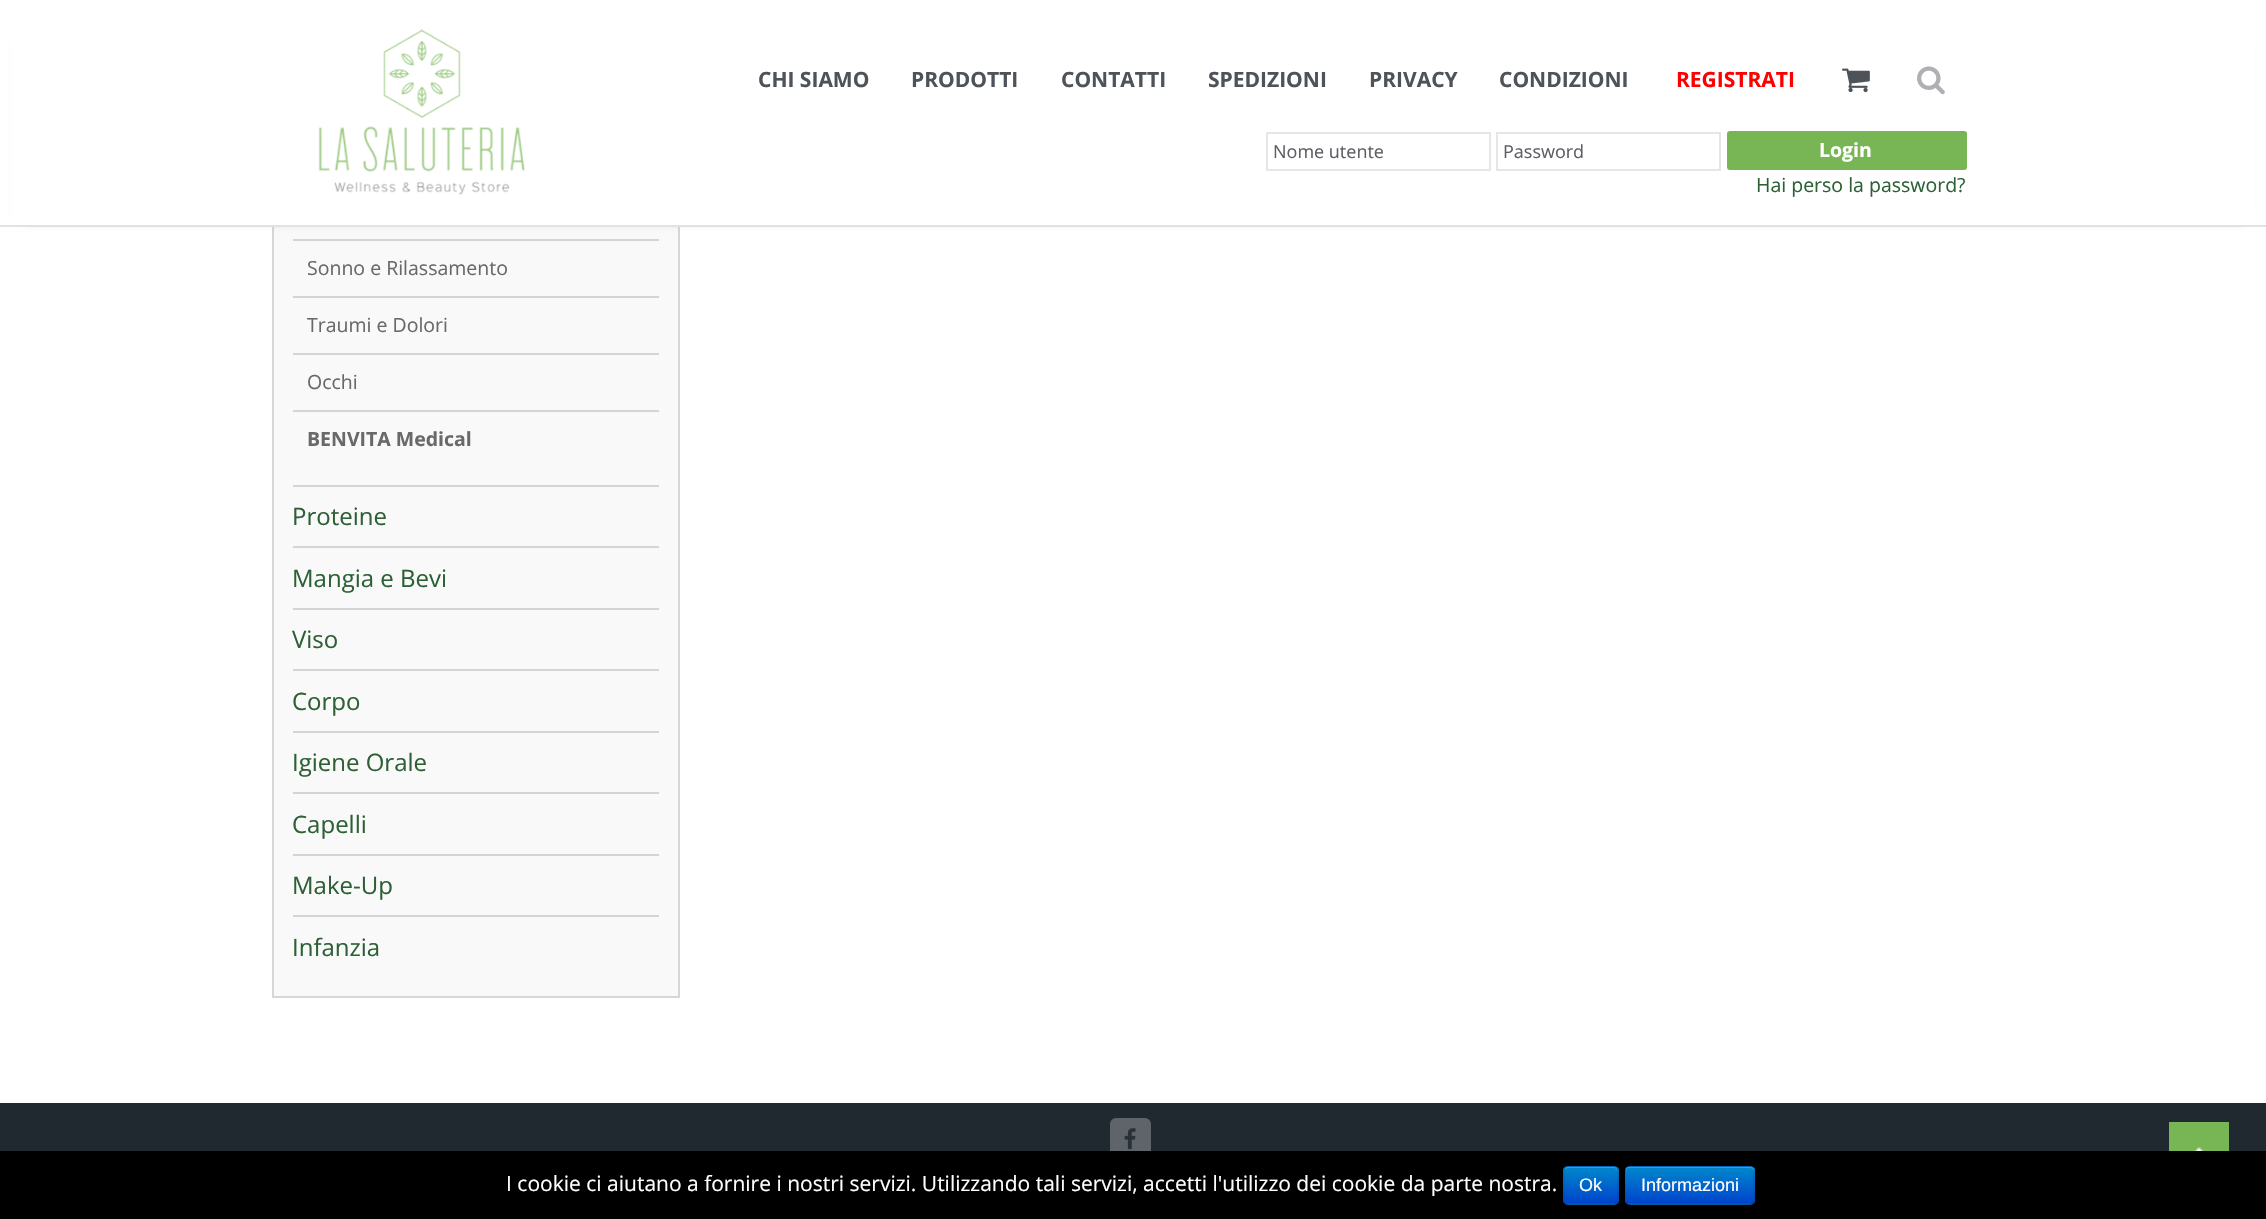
void draw(SkCanvas* canvas) {
    SkPaint paint;
    paint.setAntiAlias(true);
    canvas->clear(0xFFFFFFFF);
    paint.setColor(0xFFF9F9F9);
    canvas->drawRect(SkRect::MakeXYWH(274, 227, 404, 769), paint);
    paint.setStyle(SkPaint::kStroke_Style);
    paint.setStrokeWidth(2);
    paint.setColor(0xFFD7D7D7);
    canvas->drawRect(SkRect::MakeXYWH(273, -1, 406, 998), paint);
    paint.setStyle(SkPaint::kFill_Style);
    paint.setColor(0xFF000000);
    paint.setMaskFilter(SkMaskFilter::MakeBlur(kNormal_SkBlurStyle, 6));
    canvas->drawRect(SkRect::MakeXYWH(26, 41, 2215, 175), paint);
    paint.setMaskFilter(nullptr);
    paint.setColor(0xFFFFFFFF);
    canvas->drawRect(SkRect::MakeXYWH(12, 0, 2243, 225), paint);
    paint.setColor(0xFFE1E2E3);
    canvas->drawRect(SkRect::MakeXYWH(0, 225, 2266, 2), paint);
    canvas->drawImageRect(SkImages::DeferredFromEncodedData(SkData::MakeFromFileName("img1.png")), SkRect::MakeXYWH(318, 29, 207, 166), SkSamplingOptions());
    SkFont font1(fontMgr->matchFamilyStyle("Open Sans", SkFontStyle::Bold()), 21);
    font1.setSubpixel(true);
    paint.setColor(0xFF4D5359);
    canvas->drawString("CHI SIAMO", 758, 87, font1, paint);
    canvas->drawString("PRODOTTI", 911, 87, font1, paint);
    canvas->drawString("CONTATTI", 1061, 87, font1, paint);
    canvas->drawString("SPEDIZIONI", 1208, 87, font1, paint);
    canvas->drawString("PRIVACY", 1369, 87, font1, paint);
    canvas->drawString("CONDIZIONI", 1499, 87, font1, paint);
    paint.setColor(0xFFFF0000);
    canvas->drawString("REGISTRATI", 1676, 87, font1, paint);
    canvas->drawImageRect(SkImages::DeferredFromEncodedData(SkData::MakeFromFileName("img2.png")), SkRect::MakeXYWH(1842, 68, 28, 25), SkSamplingOptions());
    canvas->drawImageRect(SkImages::DeferredFromEncodedData(SkData::MakeFromFileName("img3.png")), SkRect::MakeXYWH(1917, 66, 28, 29), SkSamplingOptions());
    paint.setStyle(SkPaint::kStroke_Style);
    paint.setColor(0xFFE6E6E6);
    canvas->drawRect(SkRect::MakeXYWH(1267, 133, 223, 37), paint);
    SkFont font2(fontMgr->matchFamilyStyle("Open Sans", SkFontStyle::Normal()), 18);
    font2.setSubpixel(true);
    paint.setStyle(SkPaint::kFill_Style);
    paint.setColor(0xFF5C5E64);
    canvas->drawString("Nome utente", 1273, 158, font2, paint);
    paint.setStyle(SkPaint::kStroke_Style);
    paint.setColor(0xFFE6E6E6);
    canvas->drawRect(SkRect::MakeXYWH(1497, 133, 223, 37), paint);
    paint.setStyle(SkPaint::kFill_Style);
    paint.setColor(0xFF5C5E64);
    canvas->drawString("Password", 1503, 158, font2, paint);
    paint.setColor(0xFF77B555);
    canvas->drawRoundRect(SkRect::MakeXYWH(1727, 131, 240, 39), 3, 3, paint);
    SkFont font3(fontMgr->matchFamilyStyle("Open Sans", SkFontStyle::Bold()), 19.5f);
    font3.setSubpixel(true);
    paint.setColor(0xFFFFFFFF);
    canvas->drawString("Login", 1819, 157, font3, paint);
    SkFont font4(fontMgr->matchFamilyStyle("Open Sans", SkFontStyle::Normal()), 19.5f);
    font4.setSubpixel(true);
    paint.setColor(0xFF2D6135);
    canvas->drawString("Hai perso la password?", 1756, 192, font4, paint);
    paint.setColor(0xFFD4D4D6);
    canvas->drawRect(SkRect::MakeXYWH(293, 485, 366, 2), paint);
    canvas->drawRect(SkRect::MakeXYWH(293, 239, 366, 2), paint);
    canvas->drawRect(SkRect::MakeXYWH(293, 296, 366, 2), paint);
    paint.setColor(0xFF696969);
    canvas->drawString("Sonno e Rilassamento", 307, 275, font4, paint);
    paint.setColor(0xFFD4D4D6);
    canvas->drawRect(SkRect::MakeXYWH(293, 353, 366, 2), paint);
    paint.setColor(0xFF696969);
    canvas->drawString("Traumi e Dolori", 307, 332, font4, paint);
    paint.setColor(0xFFD4D4D6);
    canvas->drawRect(SkRect::MakeXYWH(293, 410, 366, 2), paint);
    paint.setColor(0xFF696969);
    canvas->drawString("Occhi", 307, 389, font4, paint);
    canvas->drawString("BENVITA Medical", 307, 446, font3, paint);
    paint.setColor(0xFFD4D4D6);
    canvas->drawRect(SkRect::MakeXYWH(293, 546, 366, 2), paint);
    SkFont font5(fontMgr->matchFamilyStyle("Open Sans", SkFontStyle::Normal()), 24);
    font5.setSubpixel(true);
    paint.setColor(0xFF2D6135);
    canvas->drawString("Proteine", 292, 525, font5, paint);
    paint.setColor(0xFFD4D4D6);
    canvas->drawRect(SkRect::MakeXYWH(293, 608, 366, 2), paint);
    paint.setColor(0xFF2D6135);
    canvas->drawString("Mangia e Bevi", 292, 587, font5, paint);
    paint.setColor(0xFFD4D4D6);
    canvas->drawRect(SkRect::MakeXYWH(293, 669, 366, 2), paint);
    paint.setColor(0xFF2D6135);
    canvas->drawString("Viso", 292, 648, font5, paint);
    paint.setColor(0xFFD4D4D6);
    canvas->drawRect(SkRect::MakeXYWH(293, 731, 366, 2), paint);
    paint.setColor(0xFF2D6135);
    canvas->drawString("Corpo", 292, 710, font5, paint);
    paint.setColor(0xFFD4D4D6);
    canvas->drawRect(SkRect::MakeXYWH(293, 792, 366, 2), paint);
    paint.setColor(0xFF2D6135);
    canvas->drawString("Igiene Orale", 292, 771, font5, paint);
    paint.setColor(0xFFD4D4D6);
    canvas->drawRect(SkRect::MakeXYWH(293, 854, 366, 2), paint);
    paint.setColor(0xFF2D6135);
    canvas->drawString("Capelli", 292, 833, font5, paint);
    paint.setColor(0xFFD4D4D6);
    canvas->drawRect(SkRect::MakeXYWH(293, 915, 366, 2), paint);
    paint.setColor(0xFF2D6135);
    canvas->drawString("Make-Up", 292, 894, font5, paint);
    canvas->drawString("Infanzia", 292, 956, font5, paint);
    paint.setColor(0xFF202830);
    canvas->drawRect(SkRect::MakeXYWH(0, 1103, 2266, 48), paint);
    paint.setColor(0xFF5F636A);
    canvas->drawRoundRect(SkRect::MakeXYWH(1111, 1119, 39, 38), 5, 5, paint);
    paint.setStyle(SkPaint::kStroke_Style);
    canvas->drawRoundRect(SkRect::MakeXYWH(1111, 1119, 39, 38), 5, 5, paint);
    canvas->drawImageRect(SkImages::DeferredFromEncodedData(SkData::MakeFromFileName("img4.png")), SkRect::MakeXYWH(1124, 1128, 12, 22), SkSamplingOptions());
    paint.setStyle(SkPaint::kFill_Style);
    paint.setColor(0xFF77B555);
    canvas->drawRect(SkRect::MakeXYWH(2169, 1122, 60, 29), paint);
    canvas->drawImageRect(SkImages::DeferredFromEncodedData(SkData::MakeFromFileName("img5.png")), SkRect::MakeXYWH(2194, 1147, 10, 4), SkSamplingOptions());
    paint.setColor(0xFF000000);
    canvas->drawRect(SkRect::MakeXYWH(0, 1151, 2266, 68), paint);
    SkFont font6(fontMgr->matchFamilyStyle("Open Sans", SkFontStyle::Normal()), 21);
    font6.setSubpixel(true);
    paint.setColor(0xFFFFFFFF);
    canvas->drawString("I cookie ci aiutano a fornire i nostri servizi. Utilizzando tali servizi, accetti l'utilizzo dei cookie da parte nostra.", 506, 1191, font6, paint);
    paint.setColor(0xFF006DCC);
    canvas->drawRoundRect(SkRect::MakeXYWH(1563, 1166, 56, 39), 5, 5, paint);
    canvas->save();
    canvas->clipPath(SkPathBuilder().moveTo(1568, 1166).lineTo(1614, 1166).cubicTo(1617, 1166, 1619, 1168, 1619, 1171).lineTo(1619, 1200).cubicTo(1619, 1203, 1617, 1205, 1614, 1205).lineTo(1568, 1205).cubicTo(1565, 1205, 1563, 1203, 1563, 1200).lineTo(1563, 1171).cubicTo(1563, 1168, 1565, 1166, 1568, 1166).close().detach(), true);
    {
        const SkColor colors[] = {0xFF0088CC, 0xFF0044CC};
        const float stops[] = {0, 1};
        const SkPoint ends[] = {{1591, 1167}, {1591, 1203}};
        paint.setShader(SkGradientShader::MakeLinear(ends, colors, stops, 2, SkTileMode::kClamp));
        paint.setAlpha(255);
    }
    canvas->drawRect(SkRect::MakeXYWH(1563, 1167, 56, 36), paint);
    canvas->restore();
    paint.setShader(nullptr);
    paint.setColor(0x33FFFFFF);
    canvas->drawPath(SkPathBuilder().moveTo(1568, 1168).lineTo(1614, 1168).cubicTo(1616, 1168, 1617, 1170, 1617, 1172).lineTo(1617, 1170).cubicTo(1617, 1168, 1616, 1167, 1614, 1167).lineTo(1568, 1167).cubicTo(1567, 1167, 1565, 1168, 1565, 1169).close().detach(), paint);
    paint.setStyle(SkPaint::kStroke_Style);
    paint.setStrokeWidth(1.5f);
    paint.setColor(0x40000000);
    canvas->drawPath(SkPathBuilder().moveTo(1616.5f, 1202.5f).cubicTo(1616, 1203.5f, 1615, 1204, 1614, 1204).lineTo(1567.5f, 1204).cubicTo(1566.5f, 1204, 1565.5f, 1203.5f, 1565, 1202.5f).detach(), paint);
    paint.setColor(0x1A000000);
    canvas->drawPath(SkPathBuilder().moveTo(1565, 1202.5f).cubicTo(1564, 1202, 1564, 1201, 1564, 1200).lineTo(1564, 1170).cubicTo(1564, 1169, 1564, 1168, 1565, 1167.5f).cubicTo(1565.5f, 1166.5f, 1566.5f, 1166, 1567.5f, 1166).lineTo(1614, 1166).cubicTo(1615, 1166, 1616, 1166.5f, 1616.5f, 1167.5f).cubicTo(1617.5f, 1168, 1618, 1169, 1618, 1170).lineTo(1618, 1200).cubicTo(1618, 1201, 1617.5f, 1202, 1616.5f, 1202.5f).detach(), paint);
    SkFont font7(fontMgr->matchFamilyStyle("Liberation Sans", SkFontStyle::Normal()), 18);
    font7.setSubpixel(true);
    paint.setStyle(SkPaint::kFill_Style);
    paint.setColor(0xFFFFFFFF);
    canvas->drawString("Ok", 1579, 1191, font7, paint);
    paint.setColor(0xFF006DCC);
    canvas->drawRoundRect(SkRect::MakeXYWH(1625, 1166, 130, 39), 5, 5, paint);
    canvas->save();
    canvas->clipPath(SkPathBuilder().moveTo(1630, 1166).lineTo(1750, 1166).cubicTo(1753, 1166, 1755, 1168, 1755, 1171).lineTo(1755, 1200).cubicTo(1755, 1203, 1753, 1205, 1750, 1205).lineTo(1630, 1205).cubicTo(1627, 1205, 1625, 1203, 1625, 1200).lineTo(1625, 1171).cubicTo(1625, 1168, 1627, 1166, 1630, 1166).close().detach(), true);
    {
        const SkColor colors[] = {0xFF0088CC, 0xFF0044CC};
        const float stops[] = {0, 1};
        const SkPoint ends[] = {{1690, 1167}, {1690, 1203}};
        paint.setShader(SkGradientShader::MakeLinear(ends, colors, stops, 2, SkTileMode::kClamp));
        paint.setAlpha(255);
    }
    canvas->drawRect(SkRect::MakeXYWH(1625, 1167, 130, 36), paint);
    canvas->restore();
    paint.setShader(nullptr);
    paint.setColor(0x33FFFFFF);
    canvas->drawPath(SkPathBuilder().moveTo(1629, 1168).lineTo(1750, 1168).cubicTo(1752, 1168, 1754, 1170, 1754, 1172).lineTo(1754, 1170).cubicTo(1754, 1168, 1753, 1167, 1751, 1167).lineTo(1629, 1167).cubicTo(1627, 1167, 1626, 1168, 1626, 1170).lineTo(1626, 1172).cubicTo(1626, 1170, 1627, 1168, 1629, 1168).close().detach(), paint);
    paint.setStyle(SkPaint::kStroke_Style);
    paint.setColor(0x40000000);
    canvas->drawPath(SkPathBuilder().moveTo(1753, 1202.5f).cubicTo(1752.5f, 1203.5f, 1751.5f, 1204, 1750.5f, 1204).lineTo(1629, 1204).cubicTo(1628, 1204, 1627, 1203.5f, 1626.5f, 1202.5f).detach(), paint);
    paint.setColor(0x1A000000);
    canvas->drawPath(SkPathBuilder().moveTo(1626.5f, 1202.5f).cubicTo(1624, 1200, 1625, 1192.5f, 1625, 1190).lineTo(1625, 1175).cubicTo(1625, 1172, 1624.5f, 1166.5f, 1629, 1166).lineTo(1750.5f, 1166).cubicTo(1755, 1166.5f, 1754, 1172, 1754, 1175).lineTo(1754, 1190).cubicTo(1754, 1192.5f, 1755.5f, 1200, 1753, 1202.5f).detach(), paint);
    paint.setStyle(SkPaint::kFill_Style);
    paint.setColor(0xFFFFFFFF);
    canvas->drawString("Informazioni", 1641, 1191, font7, paint);
}
